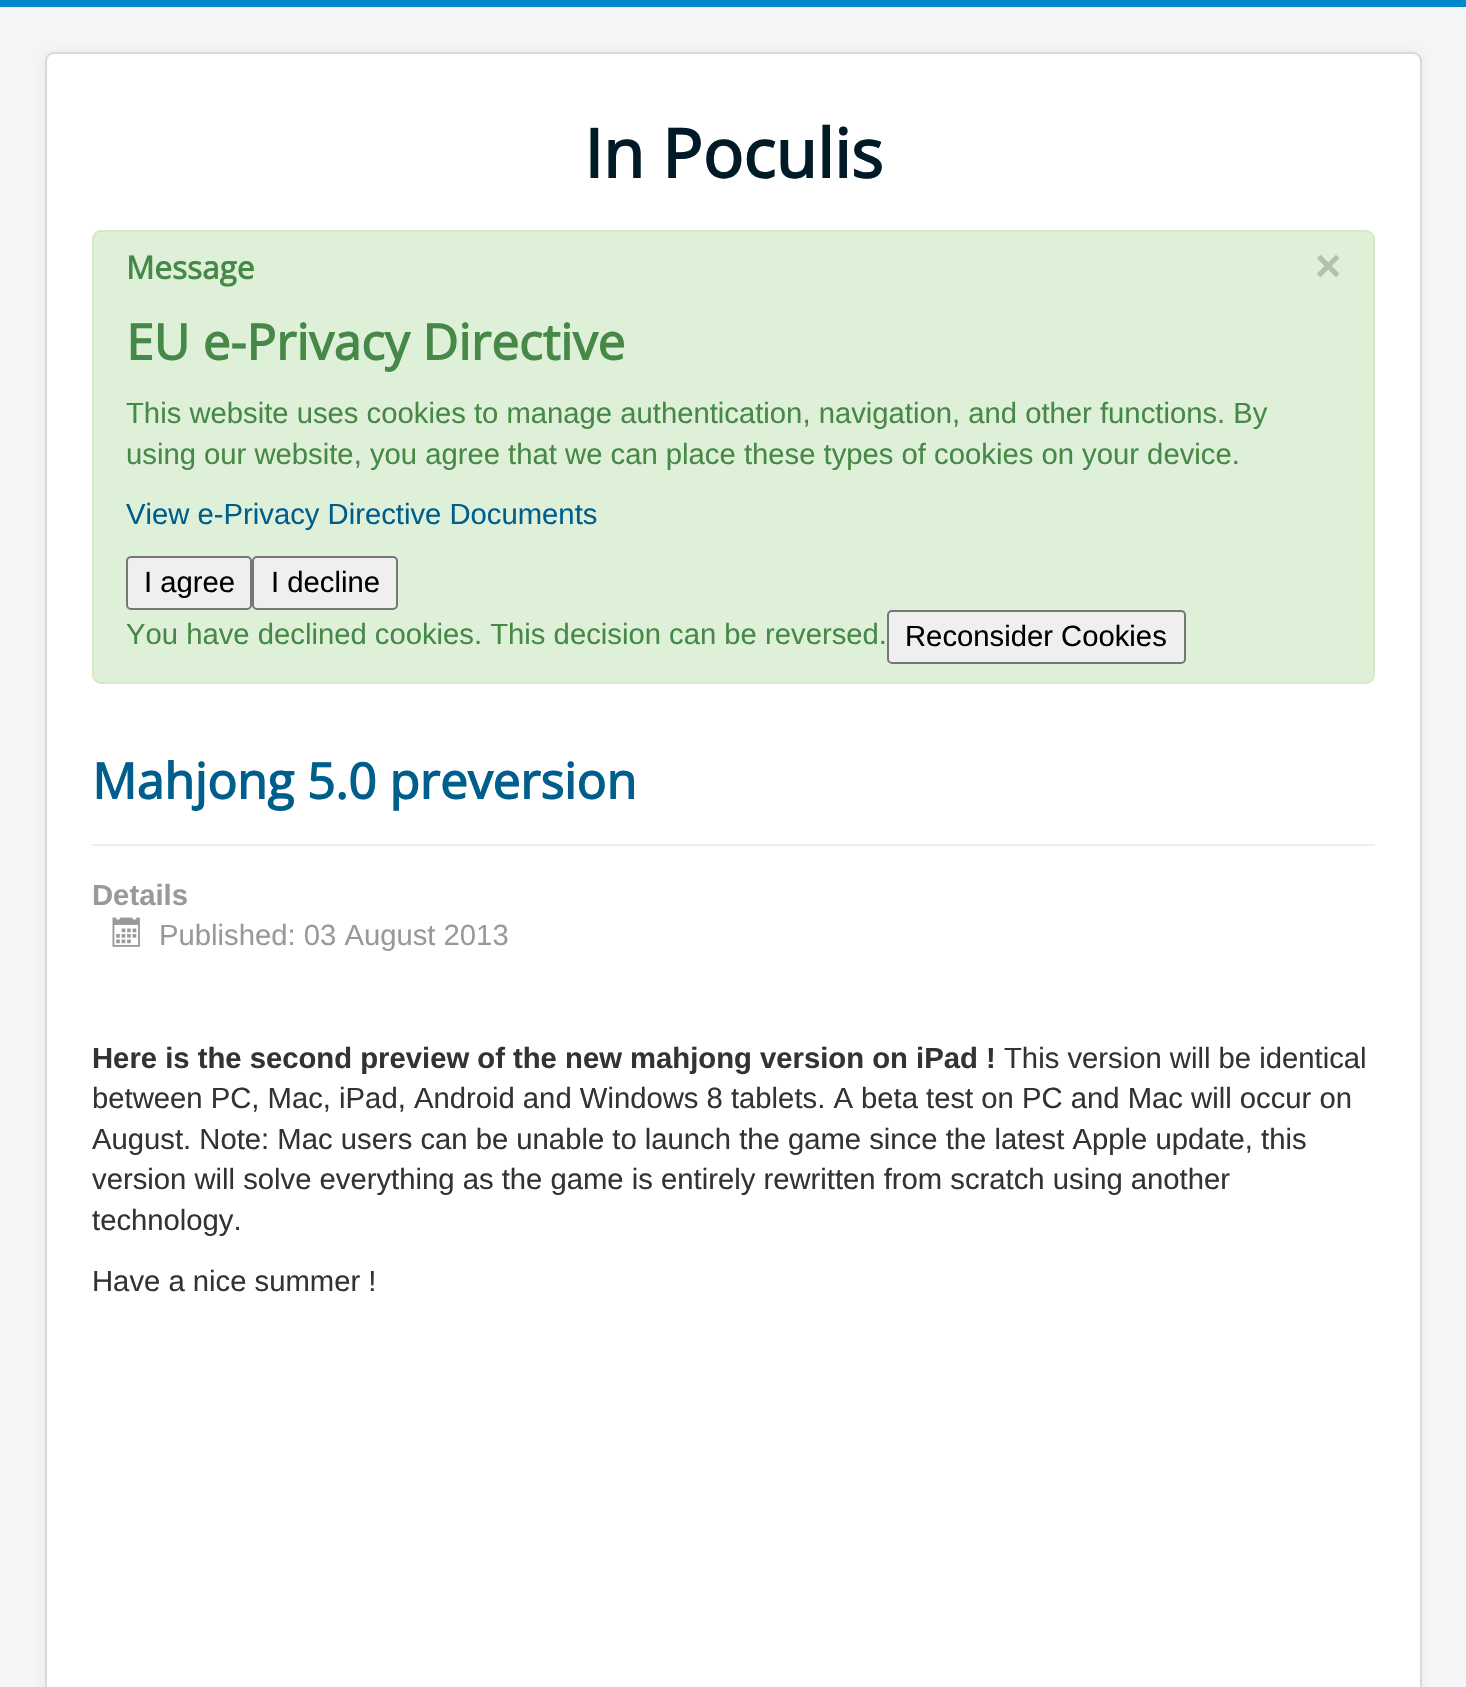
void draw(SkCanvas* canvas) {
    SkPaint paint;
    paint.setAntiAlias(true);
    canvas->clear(0xFFF4F6F7);
    paint.setColor(0xFF0088CC);
    canvas->drawRect(SkRect::MakeXYWH(0, 0, 1466, 7), paint);
    paint.setColor(0x0D000000);
    paint.setMaskFilter(SkMaskFilter::MakeBlur(kNormal_SkBlurStyle, 7));
    canvas->drawRoundRect(SkRect::MakeXYWH(45, 52, 1377, 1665), 9, 9, paint);
    paint.setMaskFilter(nullptr);
    paint.setColor(0xFFFFFFFF);
    canvas->drawRoundRect(SkRect::MakeXYWH(45, 52, 1377, 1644), 9, 9, paint);
    paint.setStyle(SkPaint::kStroke_Style);
    paint.setStrokeWidth(2);
    paint.setColor(0x26000000);
    canvas->drawRoundRect(SkRect::MakeXYWH(46, 53, 1375, 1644), 8, 8, paint);
    SkFont font1(fontMgr->matchFamilyStyle("Open Sans", SkFontStyle::Bold()), 67.5f);
    font1.setSubpixel(true);
    paint.setStyle(SkPaint::kFill_Style);
    paint.setColor(0xFF001A27);
    canvas->drawString("In Poculis", 584, 178, font1, paint);
    paint.setColor(0xFFDFF0D8);
    canvas->drawRoundRect(SkRect::MakeXYWH(93, 231, 1281, 452), 8, 8, paint);
    paint.setStyle(SkPaint::kStroke_Style);
    paint.setColor(0xFFD6E9C6);
    canvas->drawRoundRect(SkRect::MakeXYWH(93, 231, 1281, 452), 8, 8, paint);
    SkFont font2(fontMgr->matchFamilyStyle("Open Sans", SkFontStyle::Bold()), 31.5f);
    font2.setSubpixel(true);
    paint.setStyle(SkPaint::kFill_Style);
    paint.setColor(0xFF468847);
    canvas->drawString("Message", 126, 279, font2, paint);
    SkFont font3(fontMgr->matchFamilyStyle("Liberation Sans", SkFontStyle::Bold()), 45);
    font3.setSubpixel(true);
    paint.setColor(0xFFB2C0AD);
    canvas->drawString("×", 1315, 281, font3, paint);
    SkFont font4(fontMgr->matchFamilyStyle("Open Sans", SkFontStyle::Bold()), 49.5f);
    font4.setSubpixel(true);
    paint.setColor(0xFF468847);
    canvas->drawString("EU e-Privacy Directive", 126, 360, font4, paint);
    SkFont font5(fontMgr->matchFamilyStyle("Liberation Sans", SkFontStyle::Normal()), 29.25f);
    font5.setSubpixel(true);
    canvas->drawString("This website uses cookies to manage authentication, navigation, and other functions. By", 126, 423, font5, paint);
    canvas->drawString("using our website, you agree that we can place these types of cookies on your device.", 126, 464, font5, paint);
    paint.setColor(0xFF005E8D);
    canvas->drawString("View e-Privacy Directive Documents", 126, 524, font5, paint);
    paint.setColor(0xFFEFEFEF);
    canvas->drawRoundRect(SkRect::MakeXYWH(127, 557, 124, 52), 4, 4, paint);
    paint.setStyle(SkPaint::kStroke_Style);
    paint.setColor(0xFF767676);
    canvas->drawRoundRect(SkRect::MakeXYWH(127, 557, 124, 52), 4, 4, paint);
    paint.setStyle(SkPaint::kFill_Style);
    paint.setColor(0xFF000000);
    canvas->drawString("I agree", 144, 592, font5, paint);
    paint.setColor(0xFFEFEFEF);
    canvas->drawRoundRect(SkRect::MakeXYWH(253, 557, 144, 52), 4, 4, paint);
    paint.setStyle(SkPaint::kStroke_Style);
    paint.setColor(0xFF767676);
    canvas->drawRoundRect(SkRect::MakeXYWH(253, 557, 144, 52), 4, 4, paint);
    paint.setStyle(SkPaint::kFill_Style);
    paint.setColor(0xFF000000);
    canvas->drawString("I decline", 271, 592, font5, paint);
    paint.setColor(0xFF468847);
    canvas->drawString("You have declined cookies. This decision can be reversed.", 126, 644, font5, paint);
    paint.setColor(0xFFEFEFEF);
    canvas->drawRoundRect(SkRect::MakeXYWH(888, 611, 297, 52), 4, 4, paint);
    paint.setStyle(SkPaint::kStroke_Style);
    paint.setColor(0xFF767676);
    canvas->drawRoundRect(SkRect::MakeXYWH(888, 611, 297, 52), 4, 4, paint);
    paint.setStyle(SkPaint::kFill_Style);
    paint.setColor(0xFF000000);
    canvas->drawString("Reconsider Cookies", 905, 646, font5, paint);
    paint.setColor(0xFFEEEEEE);
    canvas->drawRect(SkRect::MakeXYWH(92, 844, 1283, 2), paint);
    paint.setColor(0xFF005E8D);
    canvas->drawString("Mahjong 5.0 preversion", 92, 799, font4, paint);
    SkFont font6(fontMgr->matchFamilyStyle("Liberation Sans", SkFontStyle::Bold()), 29.25f);
    font6.setSubpixel(true);
    paint.setColor(0xFF999999);
    canvas->drawString("Details", 92, 905, font6, paint);
    canvas->drawImageRect(SkImages::DeferredFromEncodedData(SkData::MakeFromFileName("img1.png")), SkRect::MakeXYWH(112, 917, 28, 30), SkSamplingOptions());
    canvas->drawString("Published: 03 August 2013", 159, 945, font5, paint);
    paint.setColor(0xFF333333);
    canvas->drawString("Here is the second preview of the new mahjong version on iPad !", 92, 1068, font6, paint);
    canvas->drawString("This version will be identical", 1004, 1068, font5, paint);
    canvas->drawString("between PC, Mac, iPad, Android and Windows 8 tablets. A beta test on PC and Mac will occur on", 92, 1108, font5, paint);
    canvas->drawString("August. Note: Mac users can be unable to launch the game since the latest Apple update, this", 92, 1149, font5, paint);
    canvas->drawString("version will solve everything as the game is entirely rewritten from scratch using another", 92, 1189, font5, paint);
    canvas->drawString("technology.", 92, 1230, font5, paint);
    canvas->drawString("Have a nice summer !", 92, 1291, font5, paint);
}
